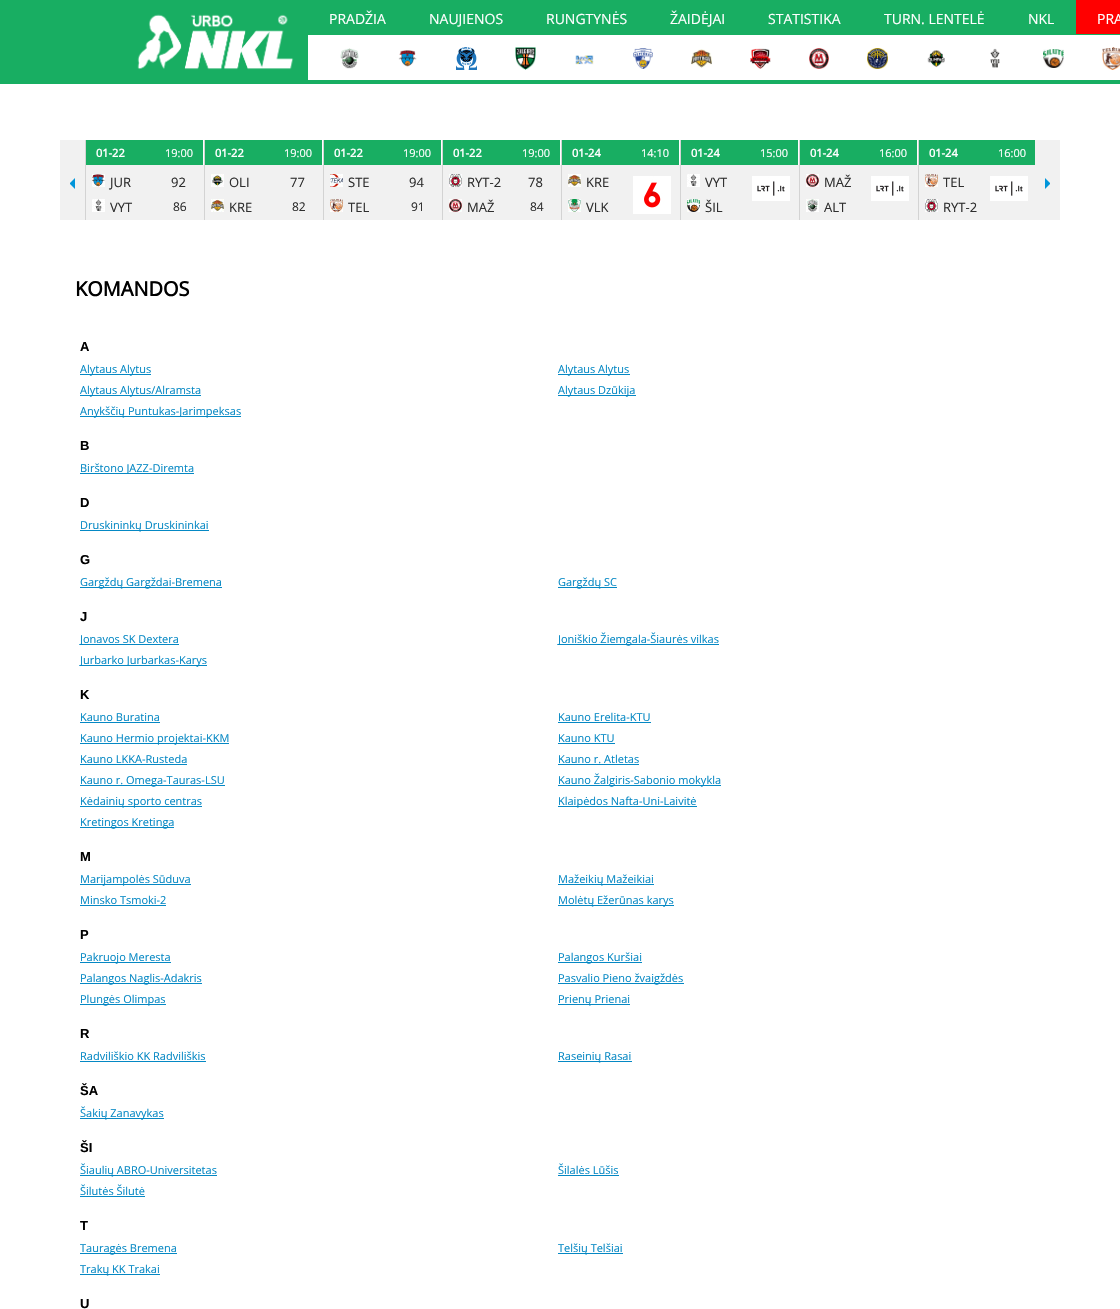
void draw(SkCanvas* canvas) {
    SkPaint paint;
    paint.setAntiAlias(true);
    canvas->clear(0xFFFFFFFF);
    paint.setColor(0xFF18AE62);
    canvas->drawRect(SkRect::MakeXYWH(0, 0, 308, 84), paint);
    canvas->drawImageRect(SkImages::DeferredFromEncodedData(SkData::MakeFromFileName("img1.png")), SkRect::MakeXYWH(137, 14, 157, 56), SkSamplingOptions());
    canvas->drawRect(SkRect::MakeXYWH(308, 0, 812, 35), paint);
    SkFont font1(fontMgr->matchFamilyStyle("Open Sans", SkFontStyle::Normal()), 14);
    font1.setSubpixel(true);
    paint.setColor(0xFFFFFFFF);
    canvas->drawString("PRADŽIA", 329, 24, font1, paint);
    canvas->drawString("NAUJIENOS", 429, 24, font1, paint);
    canvas->drawString("RUNGTYNĖS", 546, 24, font1, paint);
    canvas->drawString("ŽAIDĖJAI", 670, 24, font1, paint);
    canvas->drawString("STATISTIKA", 768, 24, font1, paint);
    canvas->drawString("TURN. LENTELĖ", 884, 24, font1, paint);
    canvas->drawString("NKL", 1028, 24, font1, paint);
    paint.setColor(0xFFFF0000);
    canvas->drawRect(SkRect::MakeXYWH(1076, 0, 44, 34), paint);
    paint.setColor(0xFFFFFFFF);
    canvas->drawString("PRA", 1097, 24, font1, paint);
    canvas->drawImageRect(SkImages::DeferredFromEncodedData(SkData::MakeFromFileName("img2.png")), SkRect::MakeXYWH(340, 48, 19, 21), SkSamplingOptions());
    canvas->drawImageRect(SkImages::DeferredFromEncodedData(SkData::MakeFromFileName("img3.png")), SkRect::MakeXYWH(398, 50, 19, 17), SkSamplingOptions());
    canvas->drawImageRect(SkImages::DeferredFromEncodedData(SkData::MakeFromFileName("img4.png")), SkRect::MakeXYWH(456, 47, 21, 23), SkSamplingOptions());
    canvas->drawImageRect(SkImages::DeferredFromEncodedData(SkData::MakeFromFileName("img5.png")), SkRect::MakeXYWH(515, 47, 21, 23), SkSamplingOptions());
    canvas->drawImageRect(SkImages::DeferredFromEncodedData(SkData::MakeFromFileName("img6.png")), SkRect::MakeXYWH(575, 55, 19, 10), SkSamplingOptions());
    canvas->drawImageRect(SkImages::DeferredFromEncodedData(SkData::MakeFromFileName("img7.png")), SkRect::MakeXYWH(633, 48, 20, 21), SkSamplingOptions());
    canvas->drawImageRect(SkImages::DeferredFromEncodedData(SkData::MakeFromFileName("img8.png")), SkRect::MakeXYWH(691, 49, 21, 19), SkSamplingOptions());
    canvas->drawImageRect(SkImages::DeferredFromEncodedData(SkData::MakeFromFileName("img9.png")), SkRect::MakeXYWH(750, 48, 21, 21), SkSamplingOptions());
    canvas->drawImageRect(SkImages::DeferredFromEncodedData(SkData::MakeFromFileName("img10.png")), SkRect::MakeXYWH(809, 48, 20, 21), SkSamplingOptions());
    canvas->drawImageRect(SkImages::DeferredFromEncodedData(SkData::MakeFromFileName("img11.png")), SkRect::MakeXYWH(867, 48, 21, 21), SkSamplingOptions());
    canvas->drawImageRect(SkImages::DeferredFromEncodedData(SkData::MakeFromFileName("img12.png")), SkRect::MakeXYWH(927, 50, 18, 18), SkSamplingOptions());
    canvas->drawImageRect(SkImages::DeferredFromEncodedData(SkData::MakeFromFileName("img13.png")), SkRect::MakeXYWH(990, 48, 10, 20), SkSamplingOptions());
    canvas->drawImageRect(SkImages::DeferredFromEncodedData(SkData::MakeFromFileName("img14.png")), SkRect::MakeXYWH(1043, 49, 21, 19), SkSamplingOptions());
    canvas->drawImageRect(SkImages::DeferredFromEncodedData(SkData::MakeFromFileName("img15.png")), SkRect::MakeXYWH(1102, 47, 18, 23), SkSamplingOptions());
    paint.setColor(0xFF18AE62);
    canvas->drawRect(SkRect::MakeXYWH(308, 80, 812, 4), paint);
    paint.setColor(0xFFF1F1F1);
    canvas->drawRect(SkRect::MakeXYWH(60, 140, 1000, 80), paint);
    paint.setColor(0xFFD3D3D3);
    canvas->drawRect(SkRect::MakeXYWH(85, 140, 1, 80), paint);
    paint.setColor(0xFF0095DA);
    canvas->drawPath(SkPathBuilder().moveTo(75, 178).lineTo(75, 189).lineTo(70, 184).lineTo(70, 183).close().detach(), paint);
    paint.setColor(0xFFD3D3D3);
    canvas->drawRect(SkRect::MakeXYWH(204, 140, 1, 80), paint);
    paint.setColor(0xFF18AE62);
    canvas->drawRect(SkRect::MakeXYWH(86, 140, 117, 25), paint);
    paint.setColor(0xFFFFFFFF);
    canvas->drawRect(SkRect::MakeXYWH(203, 140, 1, 25), paint);
    SkFont font2(fontMgr->matchFamilyStyle("Open Sans", SkFontStyle::Bold()), 11);
    font2.setSubpixel(true);
    canvas->drawString("01-22", 96, 157, font2, paint);
    SkFont font3(fontMgr->matchFamilyStyle("Open Sans", SkFontStyle::Normal()), 11);
    font3.setSubpixel(true);
    canvas->drawString("19:00", 165, 157, font3, paint);
    canvas->drawImageRect(SkImages::DeferredFromEncodedData(SkData::MakeFromFileName("img16.png")), SkRect::MakeXYWH(92, 174, 13, 13), SkSamplingOptions());
    canvas->drawImageRect(SkImages::DeferredFromEncodedData(SkData::MakeFromFileName("img17.png")), SkRect::MakeXYWH(92, 199, 13, 13), SkSamplingOptions());
    SkFont font4(fontMgr->matchFamilyStyle("Open Sans", SkFontStyle::Normal()), 13);
    font4.setSubpixel(true);
    paint.setColor(0xFF2F2F2F);
    canvas->drawString("JUR", 110, 187, font4, paint);
    canvas->drawString("VYT", 110, 212, font4, paint);
    canvas->drawString("92", 171, 187, font4, paint);
    SkFont font5(fontMgr->matchFamilyStyle("Open Sans", SkFontStyle::Normal()), 12);
    font5.setSubpixel(true);
    canvas->drawString("86", 173, 211, font5, paint);
    paint.setColor(0xFFD3D3D3);
    canvas->drawRect(SkRect::MakeXYWH(323, 140, 1, 80), paint);
    paint.setColor(0xFF18AE62);
    canvas->drawRect(SkRect::MakeXYWH(205, 140, 117, 25), paint);
    paint.setColor(0xFFFFFFFF);
    canvas->drawRect(SkRect::MakeXYWH(322, 140, 1, 25), paint);
    canvas->drawString("01-22", 215, 157, font2, paint);
    canvas->drawString("19:00", 284, 157, font3, paint);
    canvas->drawImageRect(SkImages::DeferredFromEncodedData(SkData::MakeFromFileName("img18.png")), SkRect::MakeXYWH(211, 174, 13, 13), SkSamplingOptions());
    canvas->drawImageRect(SkImages::DeferredFromEncodedData(SkData::MakeFromFileName("img19.png")), SkRect::MakeXYWH(211, 199, 13, 13), SkSamplingOptions());
    paint.setColor(0xFF2F2F2F);
    canvas->drawString("OLI", 229, 187, font4, paint);
    canvas->drawString("KRE", 229, 212, font4, paint);
    canvas->drawString("77", 290, 187, font4, paint);
    canvas->drawString("82", 292, 211, font5, paint);
    paint.setColor(0xFFD3D3D3);
    canvas->drawRect(SkRect::MakeXYWH(442, 140, 1, 80), paint);
    paint.setColor(0xFF18AE62);
    canvas->drawRect(SkRect::MakeXYWH(324, 140, 117, 25), paint);
    paint.setColor(0xFFFFFFFF);
    canvas->drawRect(SkRect::MakeXYWH(441, 140, 1, 25), paint);
    canvas->drawString("01-22", 334, 157, font2, paint);
    canvas->drawString("19:00", 403, 157, font3, paint);
    canvas->drawImageRect(SkImages::DeferredFromEncodedData(SkData::MakeFromFileName("img20.png")), SkRect::MakeXYWH(330, 174, 13, 13), SkSamplingOptions());
    canvas->drawImageRect(SkImages::DeferredFromEncodedData(SkData::MakeFromFileName("img21.png")), SkRect::MakeXYWH(330, 199, 13, 13), SkSamplingOptions());
    paint.setColor(0xFF2F2F2F);
    canvas->drawString("STE", 348, 187, font4, paint);
    canvas->drawString("TEL", 348, 212, font4, paint);
    canvas->drawString("94", 409, 187, font4, paint);
    canvas->drawString("91", 411, 211, font5, paint);
    paint.setColor(0xFFD3D3D3);
    canvas->drawRect(SkRect::MakeXYWH(561, 140, 1, 80), paint);
    paint.setColor(0xFF18AE62);
    canvas->drawRect(SkRect::MakeXYWH(443, 140, 117, 25), paint);
    paint.setColor(0xFFFFFFFF);
    canvas->drawRect(SkRect::MakeXYWH(560, 140, 1, 25), paint);
    canvas->drawString("01-22", 453, 157, font2, paint);
    canvas->drawString("19:00", 522, 157, font3, paint);
    canvas->drawImageRect(SkImages::DeferredFromEncodedData(SkData::MakeFromFileName("img22.png")), SkRect::MakeXYWH(449, 174, 13, 13), SkSamplingOptions());
    canvas->drawImageRect(SkImages::DeferredFromEncodedData(SkData::MakeFromFileName("img23.png")), SkRect::MakeXYWH(449, 199, 13, 13), SkSamplingOptions());
    paint.setColor(0xFF2F2F2F);
    canvas->drawString("RYT-2", 467, 187, font4, paint);
    canvas->drawString("MAŽ", 467, 212, font4, paint);
    canvas->drawString("78", 528, 187, font4, paint);
    canvas->drawString("84", 530, 211, font5, paint);
    paint.setColor(0xFFD3D3D3);
    canvas->drawRect(SkRect::MakeXYWH(680, 140, 1, 80), paint);
    paint.setColor(0xFF18AE62);
    canvas->drawRect(SkRect::MakeXYWH(562, 140, 117, 25), paint);
    paint.setColor(0xFFFFFFFF);
    canvas->drawRect(SkRect::MakeXYWH(679, 140, 1, 25), paint);
    canvas->drawString("01-24", 572, 157, font2, paint);
    canvas->drawString("14:10", 641, 157, font3, paint);
    canvas->drawImageRect(SkImages::DeferredFromEncodedData(SkData::MakeFromFileName("img19.png")), SkRect::MakeXYWH(568, 174, 13, 13), SkSamplingOptions());
    canvas->drawImageRect(SkImages::DeferredFromEncodedData(SkData::MakeFromFileName("img24.png")), SkRect::MakeXYWH(568, 199, 13, 13), SkSamplingOptions());
    paint.setColor(0xFF2F2F2F);
    canvas->drawString("KRE", 586, 187, font4, paint);
    canvas->drawString("VLK", 586, 212, font4, paint);
    canvas->drawImageRect(SkImages::DeferredFromEncodedData(SkData::MakeFromFileName("img25.png")), SkRect::MakeXYWH(633, 176, 38, 38), SkSamplingOptions());
    paint.setColor(0xFFD3D3D3);
    canvas->drawRect(SkRect::MakeXYWH(799, 140, 1, 80), paint);
    paint.setColor(0xFF18AE62);
    canvas->drawRect(SkRect::MakeXYWH(681, 140, 117, 25), paint);
    paint.setColor(0xFFFFFFFF);
    canvas->drawRect(SkRect::MakeXYWH(798, 140, 1, 25), paint);
    canvas->drawString("01-24", 691, 157, font2, paint);
    canvas->drawString("15:00", 760, 157, font3, paint);
    canvas->drawImageRect(SkImages::DeferredFromEncodedData(SkData::MakeFromFileName("img17.png")), SkRect::MakeXYWH(687, 174, 13, 13), SkSamplingOptions());
    canvas->drawImageRect(SkImages::DeferredFromEncodedData(SkData::MakeFromFileName("img26.png")), SkRect::MakeXYWH(687, 199, 13, 13), SkSamplingOptions());
    paint.setColor(0xFF2F2F2F);
    canvas->drawString("VYT", 705, 187, font4, paint);
    canvas->drawString("ŠIL", 705, 212, font4, paint);
    canvas->drawImageRect(SkImages::DeferredFromEncodedData(SkData::MakeFromFileName("img27.png")), SkRect::MakeXYWH(752, 176, 38, 25), SkSamplingOptions());
    paint.setColor(0xFFD3D3D3);
    canvas->drawRect(SkRect::MakeXYWH(918, 140, 1, 80), paint);
    paint.setColor(0xFF18AE62);
    canvas->drawRect(SkRect::MakeXYWH(800, 140, 117, 25), paint);
    paint.setColor(0xFFFFFFFF);
    canvas->drawRect(SkRect::MakeXYWH(917, 140, 1, 25), paint);
    canvas->drawString("01-24", 810, 157, font2, paint);
    canvas->drawString("16:00", 879, 157, font3, paint);
    canvas->drawImageRect(SkImages::DeferredFromEncodedData(SkData::MakeFromFileName("img23.png")), SkRect::MakeXYWH(806, 174, 13, 13), SkSamplingOptions());
    canvas->drawImageRect(SkImages::DeferredFromEncodedData(SkData::MakeFromFileName("img28.png")), SkRect::MakeXYWH(806, 199, 13, 13), SkSamplingOptions());
    paint.setColor(0xFF2F2F2F);
    canvas->drawString("MAŽ", 824, 187, font4, paint);
    canvas->drawString("ALT", 824, 212, font4, paint);
    canvas->drawImageRect(SkImages::DeferredFromEncodedData(SkData::MakeFromFileName("img27.png")), SkRect::MakeXYWH(871, 176, 38, 25), SkSamplingOptions());
    paint.setColor(0xFF18AE62);
    canvas->drawRect(SkRect::MakeXYWH(919, 140, 116, 25), paint);
    paint.setColor(0xFFFFFFFF);
    canvas->drawString("01-24", 929, 157, font2, paint);
    canvas->drawString("16:00", 998, 157, font3, paint);
    canvas->drawImageRect(SkImages::DeferredFromEncodedData(SkData::MakeFromFileName("img21.png")), SkRect::MakeXYWH(925, 174, 13, 13), SkSamplingOptions());
    canvas->drawImageRect(SkImages::DeferredFromEncodedData(SkData::MakeFromFileName("img22.png")), SkRect::MakeXYWH(925, 199, 13, 13), SkSamplingOptions());
    paint.setColor(0xFF2F2F2F);
    canvas->drawString("TEL", 943, 187, font4, paint);
    canvas->drawString("RYT-2", 943, 212, font4, paint);
    canvas->drawImageRect(SkImages::DeferredFromEncodedData(SkData::MakeFromFileName("img27.png")), SkRect::MakeXYWH(990, 176, 38, 25), SkSamplingOptions());
    paint.setColor(0xFF0095DA);
    canvas->drawPath(SkPathBuilder().moveTo(1045, 189).lineTo(1045, 178).lineTo(1050, 183).lineTo(1050, 184).close().detach(), paint);
    SkFont font6(fontMgr->matchFamilyStyle("Open Sans", SkFontStyle::Bold()), 20);
    font6.setSubpixel(true);
    paint.setColor(0xFF000000);
    canvas->drawString("KOMANDOS", 75, 296, font6, paint);
    SkFont font7(fontMgr->matchFamilyStyle("Liberation Sans", SkFontStyle::Bold()), 13);
    font7.setSubpixel(true);
    canvas->drawString("A", 80, 351, font7, paint);
    paint.setColor(0xFF0588C4);
    canvas->drawRect(SkRect::MakeXYWH(80, 374, 71, 1), paint);
    canvas->drawString("Alytaus Alytus", 80, 373, font3, paint);
    canvas->drawRect(SkRect::MakeXYWH(558, 374, 72, 1), paint);
    canvas->drawString("Alytaus Alytus", 558, 373, font3, paint);
    canvas->drawRect(SkRect::MakeXYWH(80, 395, 121, 1), paint);
    canvas->drawString("Alytaus Alytus/Alramsta", 80, 394, font3, paint);
    canvas->drawRect(SkRect::MakeXYWH(558, 395, 78, 1), paint);
    canvas->drawString("Alytaus Dzūkija", 558, 394, font3, paint);
    canvas->drawRect(SkRect::MakeXYWH(80, 416, 161, 1), paint);
    canvas->drawString("Anykščių Puntukas-Jarimpeksas", 80, 415, font3, paint);
    paint.setColor(0xFF000000);
    canvas->drawString("B", 80, 450, font7, paint);
    paint.setColor(0xFF0588C4);
    canvas->drawRect(SkRect::MakeXYWH(80, 473, 114, 1), paint);
    canvas->drawString("Birštono JAZZ-Diremta", 80, 472, font3, paint);
    paint.setColor(0xFF000000);
    canvas->drawString("D", 80, 507, font7, paint);
    paint.setColor(0xFF0588C4);
    canvas->drawRect(SkRect::MakeXYWH(80, 530, 129, 1), paint);
    canvas->drawString("Druskininkų Druskininkai", 80, 529, font3, paint);
    paint.setColor(0xFF000000);
    canvas->drawString("G", 80, 564, font7, paint);
    paint.setColor(0xFF0588C4);
    canvas->drawRect(SkRect::MakeXYWH(80, 587, 142, 1), paint);
    canvas->drawString("Gargždų Gargždai-Bremena", 80, 586, font3, paint);
    canvas->drawRect(SkRect::MakeXYWH(558, 587, 59, 1), paint);
    canvas->drawString("Gargždų SC", 558, 586, font3, paint);
    paint.setColor(0xFF000000);
    canvas->drawString("J", 80, 621, font7, paint);
    paint.setColor(0xFF0588C4);
    canvas->drawRect(SkRect::MakeXYWH(80, 644, 99, 1), paint);
    canvas->drawString("Jonavos SK Dextera", 80, 643, font3, paint);
    canvas->drawRect(SkRect::MakeXYWH(558, 644, 161, 1), paint);
    canvas->drawString("Joniškio Žiemgala-Šiaurės vilkas", 558, 643, font3, paint);
    canvas->drawRect(SkRect::MakeXYWH(80, 665, 127, 1), paint);
    canvas->drawString("Jurbarko Jurbarkas-Karys", 80, 664, font3, paint);
    paint.setColor(0xFF000000);
    canvas->drawString("K", 80, 699, font7, paint);
    paint.setColor(0xFF0588C4);
    canvas->drawString("Kauno Buratina", 80, 721, font3, paint);
    canvas->drawRect(SkRect::MakeXYWH(80, 722, 80, 1), paint);
    canvas->drawString("Kauno Erelita-KTU", 558, 721, font3, paint);
    canvas->drawRect(SkRect::MakeXYWH(558, 722, 93, 1), paint);
    canvas->drawRect(SkRect::MakeXYWH(80, 743, 149, 1), paint);
    canvas->drawString("Kauno Hermio projektai-KKM", 80, 742, font3, paint);
    canvas->drawString("Kauno KTU", 558, 742, font3, paint);
    canvas->drawRect(SkRect::MakeXYWH(558, 743, 57, 1), paint);
    canvas->drawString("Kauno LKKA-Rusteda", 80, 763, font3, paint);
    canvas->drawRect(SkRect::MakeXYWH(80, 764, 107, 1), paint);
    canvas->drawString("Kauno r. Atletas", 558, 763, font3, paint);
    canvas->drawRect(SkRect::MakeXYWH(558, 764, 81, 1), paint);
    canvas->drawRect(SkRect::MakeXYWH(80, 785, 145, 1), paint);
    canvas->drawString("Kauno r. Omega-Tauras-LSU", 80, 784, font3, paint);
    canvas->drawRect(SkRect::MakeXYWH(558, 785, 163, 1), paint);
    canvas->drawString("Kauno Žalgiris-Sabonio mokykla", 558, 784, font3, paint);
    canvas->drawRect(SkRect::MakeXYWH(80, 806, 122, 1), paint);
    canvas->drawString("Kėdainių sporto centras", 80, 805, font3, paint);
    canvas->drawRect(SkRect::MakeXYWH(558, 806, 139, 1), paint);
    canvas->drawString("Klaipėdos Nafta-Uni-Laivitė", 558, 805, font3, paint);
    canvas->drawRect(SkRect::MakeXYWH(80, 827, 94, 1), paint);
    canvas->drawString("Kretingos Kretinga", 80, 826, font3, paint);
    paint.setColor(0xFF000000);
    canvas->drawString("M", 80, 861, font7, paint);
    paint.setColor(0xFF0588C4);
    canvas->drawRect(SkRect::MakeXYWH(80, 884, 111, 1), paint);
    canvas->drawString("Marijampolės Sūduva", 80, 883, font3, paint);
    canvas->drawRect(SkRect::MakeXYWH(558, 884, 96, 1), paint);
    canvas->drawString("Mažeikių Mažeikiai", 558, 883, font3, paint);
    canvas->drawString("Minsko Tsmoki-2", 80, 904, font3, paint);
    canvas->drawRect(SkRect::MakeXYWH(80, 905, 86, 1), paint);
    canvas->drawRect(SkRect::MakeXYWH(558, 905, 116, 1), paint);
    canvas->drawString("Molėtų Ežerūnas karys", 558, 904, font3, paint);
    paint.setColor(0xFF000000);
    canvas->drawString("P", 80, 939, font7, paint);
    paint.setColor(0xFF0588C4);
    canvas->drawRect(SkRect::MakeXYWH(80, 962, 91, 1), paint);
    canvas->drawString("Pakruojo Meresta", 80, 961, font3, paint);
    canvas->drawRect(SkRect::MakeXYWH(558, 962, 84, 1), paint);
    canvas->drawString("Palangos Kuršiai", 558, 961, font3, paint);
    canvas->drawRect(SkRect::MakeXYWH(80, 983, 122, 1), paint);
    canvas->drawString("Palangos Naglis-Adakris", 80, 982, font3, paint);
    canvas->drawRect(SkRect::MakeXYWH(558, 983, 126, 1), paint);
    canvas->drawString("Pasvalio Pieno žvaigždės", 558, 982, font3, paint);
    canvas->drawRect(SkRect::MakeXYWH(80, 1004, 86, 1), paint);
    canvas->drawString("Plungės Olimpas", 80, 1003, font3, paint);
    canvas->drawRect(SkRect::MakeXYWH(558, 1004, 72, 1), paint);
    canvas->drawString("Prienų Prienai", 558, 1003, font3, paint);
    paint.setColor(0xFF000000);
    canvas->drawString("R", 80, 1038, font7, paint);
    paint.setColor(0xFF0588C4);
    canvas->drawString("Radviliškio KK Radviliškis", 80, 1060, font3, paint);
    canvas->drawRect(SkRect::MakeXYWH(80, 1061, 126, 1), paint);
    canvas->drawRect(SkRect::MakeXYWH(558, 1061, 74, 1), paint);
    canvas->drawString("Raseinių Rasai", 558, 1060, font3, paint);
    paint.setColor(0xFF000000);
    canvas->drawString("ŠA", 80, 1095, font7, paint);
    paint.setColor(0xFF0588C4);
    canvas->drawRect(SkRect::MakeXYWH(80, 1118, 84, 1), paint);
    canvas->drawString("Šakių Zanavykas", 80, 1117, font3, paint);
    paint.setColor(0xFF000000);
    canvas->drawString("ŠI", 80, 1152, font7, paint);
    paint.setColor(0xFF0588C4);
    canvas->drawRect(SkRect::MakeXYWH(80, 1175, 137, 1), paint);
    canvas->drawString("Šiaulių ABRO-Universitetas", 80, 1174, font3, paint);
    canvas->drawString("Šilalės Lūšis", 558, 1174, font3, paint);
    canvas->drawRect(SkRect::MakeXYWH(558, 1175, 61, 1), paint);
    canvas->drawString("Šilutės Šilutė", 80, 1195, font3, paint);
    canvas->drawRect(SkRect::MakeXYWH(80, 1196, 65, 1), paint);
    paint.setColor(0xFF000000);
    canvas->drawString("T", 80, 1230, font7, paint);
    paint.setColor(0xFF0588C4);
    canvas->drawRect(SkRect::MakeXYWH(80, 1253, 97, 1), paint);
    canvas->drawString("Tauragės Bremena", 80, 1252, font3, paint);
    canvas->drawRect(SkRect::MakeXYWH(558, 1253, 65, 1), paint);
    canvas->drawString("Telšių Telšiai", 558, 1252, font3, paint);
    canvas->drawRect(SkRect::MakeXYWH(80, 1274, 80, 1), paint);
    canvas->drawString("Trakų KK Trakai", 80, 1273, font3, paint);
    paint.setColor(0xFF000000);
    canvas->drawString("U", 80, 1308, font7, paint);
}
